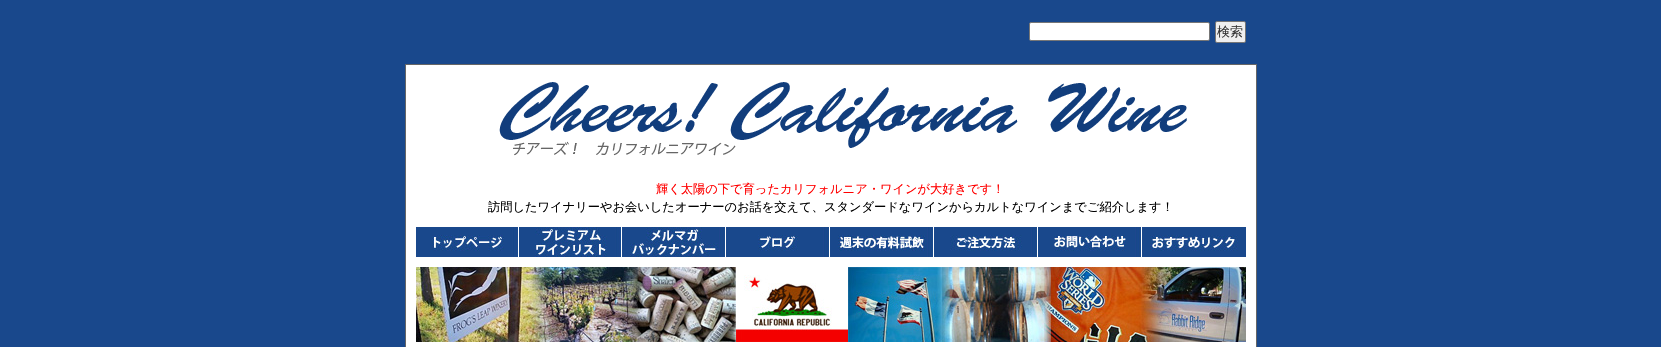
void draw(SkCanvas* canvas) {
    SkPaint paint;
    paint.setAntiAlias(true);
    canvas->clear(0xFF19488C);
    paint.setColor(0xFFFFFFFF);
    canvas->drawRoundRect(SkRect::MakeXYWH(1029.5f, 22.5f, 180, 18), 1.5f, 1.5f, paint);
    paint.setStyle(SkPaint::kStroke_Style);
    paint.setStrokeWidth(1);
    paint.setColor(0xFF767676);
    canvas->drawRoundRect(SkRect::MakeXYWH(1029.5f, 22.5f, 180, 18), 1.5f, 1.5f, paint);
    paint.setStyle(SkPaint::kFill_Style);
    paint.setColor(0xFFEFEFEF);
    canvas->drawRoundRect(SkRect::MakeXYWH(1215.5f, 21.5f, 30, 21), 1.5f, 1.5f, paint);
    paint.setStyle(SkPaint::kStroke_Style);
    paint.setColor(0xFF767676);
    canvas->drawRoundRect(SkRect::MakeXYWH(1215.5f, 21.5f, 30, 21), 1.5f, 1.5f, paint);
    SkFont font1(fontMgr->matchFamilyStyle("WenQuanYi Zen Hei", SkFontStyle(500, SkFontStyle::kNormal_Width, SkFontStyle::kUpright_Slant)), 13);
    font1.setSubpixel(true);
    paint.setStyle(SkPaint::kFill_Style);
    paint.setColor(0xFF333333);
    canvas->drawString("検索", 1217, 36, font1, paint);
    paint.setColor(0xFFFFFFFF);
    canvas->drawRect(SkRect::MakeXYWH(405.5f, 64.5f, 851, 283), paint);
    paint.setStyle(SkPaint::kStroke_Style);
    paint.setColor(0xFF666666);
    canvas->drawRect(SkRect::MakeXYWH(405.5f, 64.5f, 851, 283), paint);
    canvas->drawImageRect(SkImages::DeferredFromEncodedData(SkData::MakeFromFileName("img1.png")), SkRect::MakeXYWH(499, 82, 688, 74), SkSamplingOptions());
    SkFont font2(fontMgr->matchFamilyStyle("WenQuanYi Zen Hei", SkFontStyle(500, SkFontStyle::kNormal_Width, SkFontStyle::kUpright_Slant)), 12.25f);
    font2.setSubpixel(true);
    paint.setStyle(SkPaint::kFill_Style);
    paint.setColor(0xFFFF0000);
    canvas->drawString("輝く太陽の下で育ったカリフォルニア・ワインが大好きです！", 656, 193, font2, paint);
    paint.setColor(0xFF000000);
    canvas->drawString("訪問したワイナリーやお会いしたオーナーのお話を交えて、スタンダードなワインからカルトなワインまでご紹介します！", 488, 211, font2, paint);
    canvas->drawImageRect(SkImages::DeferredFromEncodedData(SkData::MakeFromFileName("img2.png")), SkRect::MakeXYWH(416, 227, 102, 30), SkSamplingOptions());
    canvas->drawImageRect(SkImages::DeferredFromEncodedData(SkData::MakeFromFileName("img3.png")), SkRect::MakeXYWH(519, 227, 102, 30), SkSamplingOptions());
    canvas->drawImageRect(SkImages::DeferredFromEncodedData(SkData::MakeFromFileName("img4.png")), SkRect::MakeXYWH(622, 227, 103, 30), SkSamplingOptions());
    canvas->drawImageRect(SkImages::DeferredFromEncodedData(SkData::MakeFromFileName("img5.png")), SkRect::MakeXYWH(726, 227, 103, 30), SkSamplingOptions());
    canvas->drawImageRect(SkImages::DeferredFromEncodedData(SkData::MakeFromFileName("img6.png")), SkRect::MakeXYWH(830, 227, 103, 30), SkSamplingOptions());
    canvas->drawImageRect(SkImages::DeferredFromEncodedData(SkData::MakeFromFileName("img7.png")), SkRect::MakeXYWH(934, 227, 103, 30), SkSamplingOptions());
    canvas->drawImageRect(SkImages::DeferredFromEncodedData(SkData::MakeFromFileName("img8.png")), SkRect::MakeXYWH(1038, 227, 103, 30), SkSamplingOptions());
    canvas->drawImageRect(SkImages::DeferredFromEncodedData(SkData::MakeFromFileName("img9.png")), SkRect::MakeXYWH(1142, 227, 104, 30), SkSamplingOptions());
    canvas->drawImageRect(SkImages::DeferredFromEncodedData(SkData::MakeFromFileName("img10.png")), SkRect::MakeXYWH(416, 267, 830, 75), SkSamplingOptions());
}
